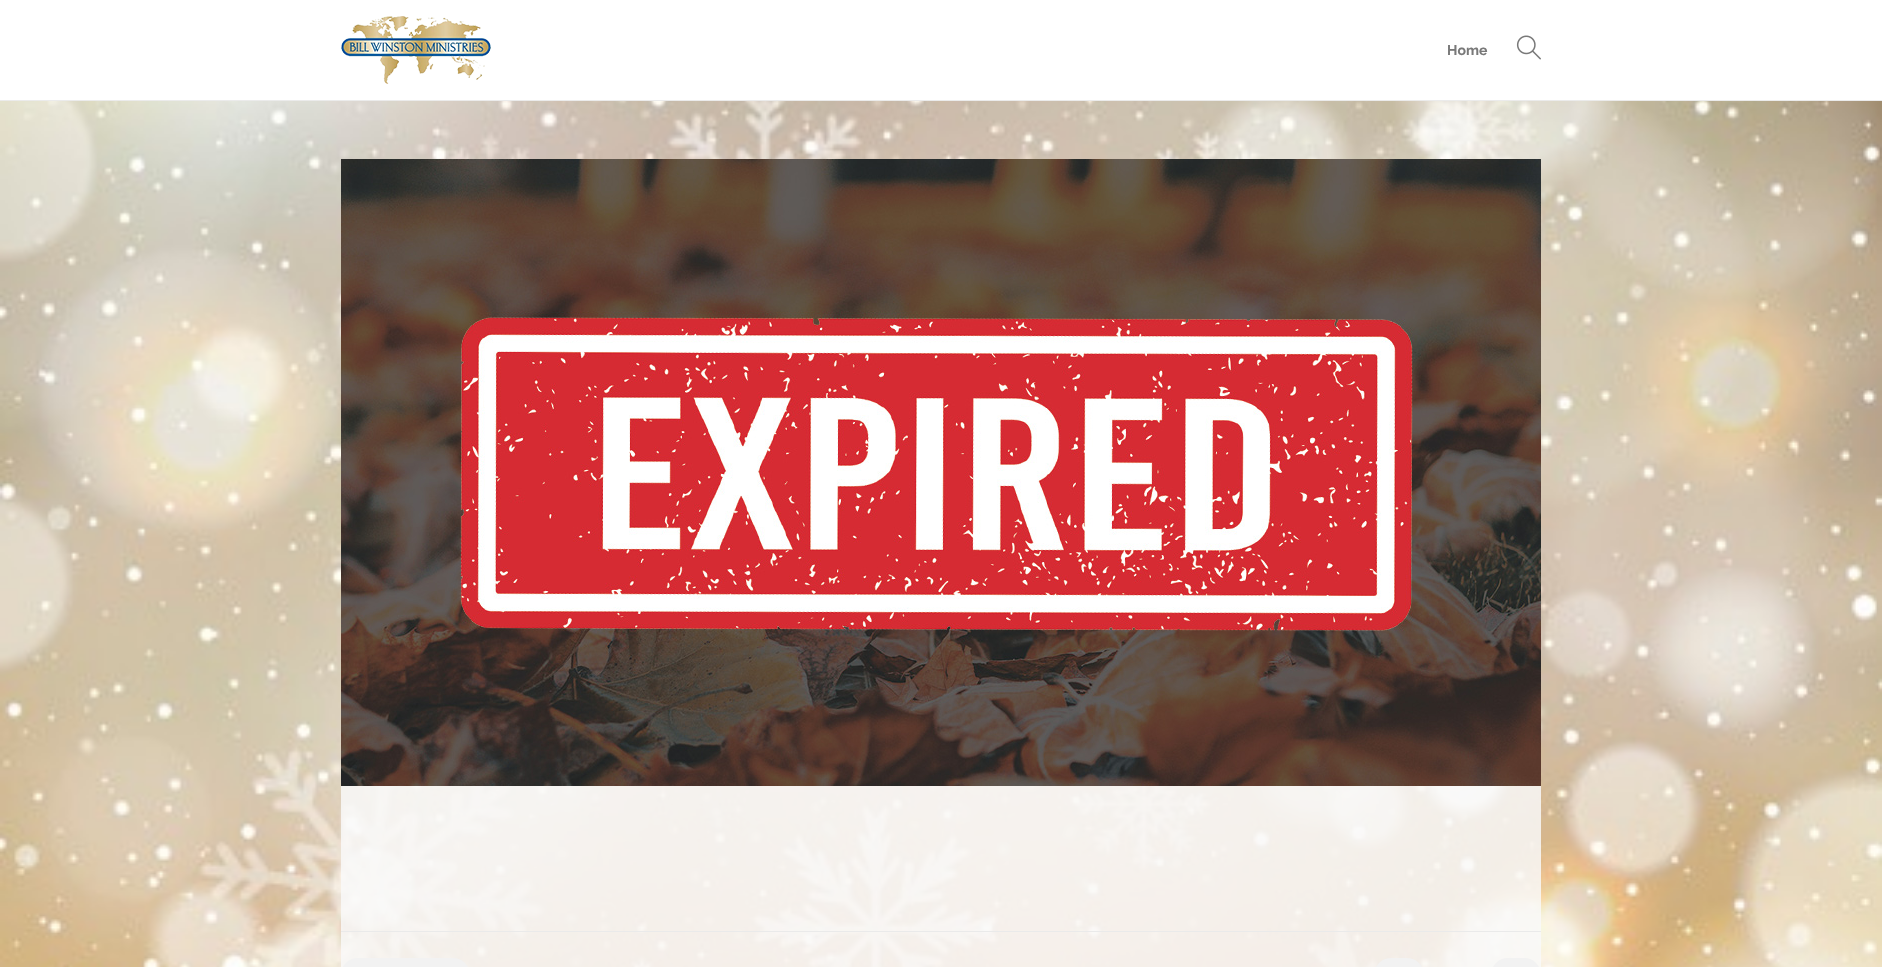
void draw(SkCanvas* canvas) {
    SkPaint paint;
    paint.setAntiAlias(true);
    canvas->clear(0xFFFFFFFF);
    canvas->drawImageRect(SkImages::DeferredFromEncodedData(SkData::MakeFromFileName("img1.png")), SkRect::MakeXYWH(0, 101, 1882, 866), SkSamplingOptions());
    paint.setColor(0xFFEBEBEB);
    canvas->drawRect(SkRect::MakeXYWH(0, 100, 1882, 1), paint);
    canvas->drawImageRect(SkImages::DeferredFromEncodedData(SkData::MakeFromFileName("img2.png")), SkRect::MakeXYWH(341, 16, 150, 68), SkSamplingOptions());
    SkFont font1(fontMgr->matchFamilyStyle("Raleway", SkFontStyle::Bold()), 14);
    font1.setSubpixel(true);
    paint.setColor(0xFF797979);
    canvas->drawString("Home", 1447, 55, font1, paint);
    canvas->drawImageRect(SkImages::DeferredFromEncodedData(SkData::MakeFromFileName("img3.png")), SkRect::MakeXYWH(1516, 35, 25, 25), SkSamplingOptions());
    paint.setColor(0xD4F9F9F9);
    canvas->drawRect(SkRect::MakeXYWH(341, 786, 1200, 181), paint);
    canvas->drawImageRect(SkImages::DeferredFromEncodedData(SkData::MakeFromFileName("img4.png")), SkRect::MakeXYWH(341, 159, 1200, 627), SkSamplingOptions());
    paint.setColor(0xFFEAEAEA);
    canvas->drawRect(SkRect::MakeXYWH(341, 931, 1200, 1), paint);
    paint.setColor(0xFFF2F2F2);
    canvas->drawRoundRect(SkRect::MakeXYWH(341, 958, 129, 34), 25, 25, paint);
    canvas->drawRoundRect(SkRect::MakeXYWH(1374, 958, 50, 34), 25, 25, paint);
    canvas->drawRoundRect(SkRect::MakeXYWH(1491, 958, 50, 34), 25, 25, paint);
}
